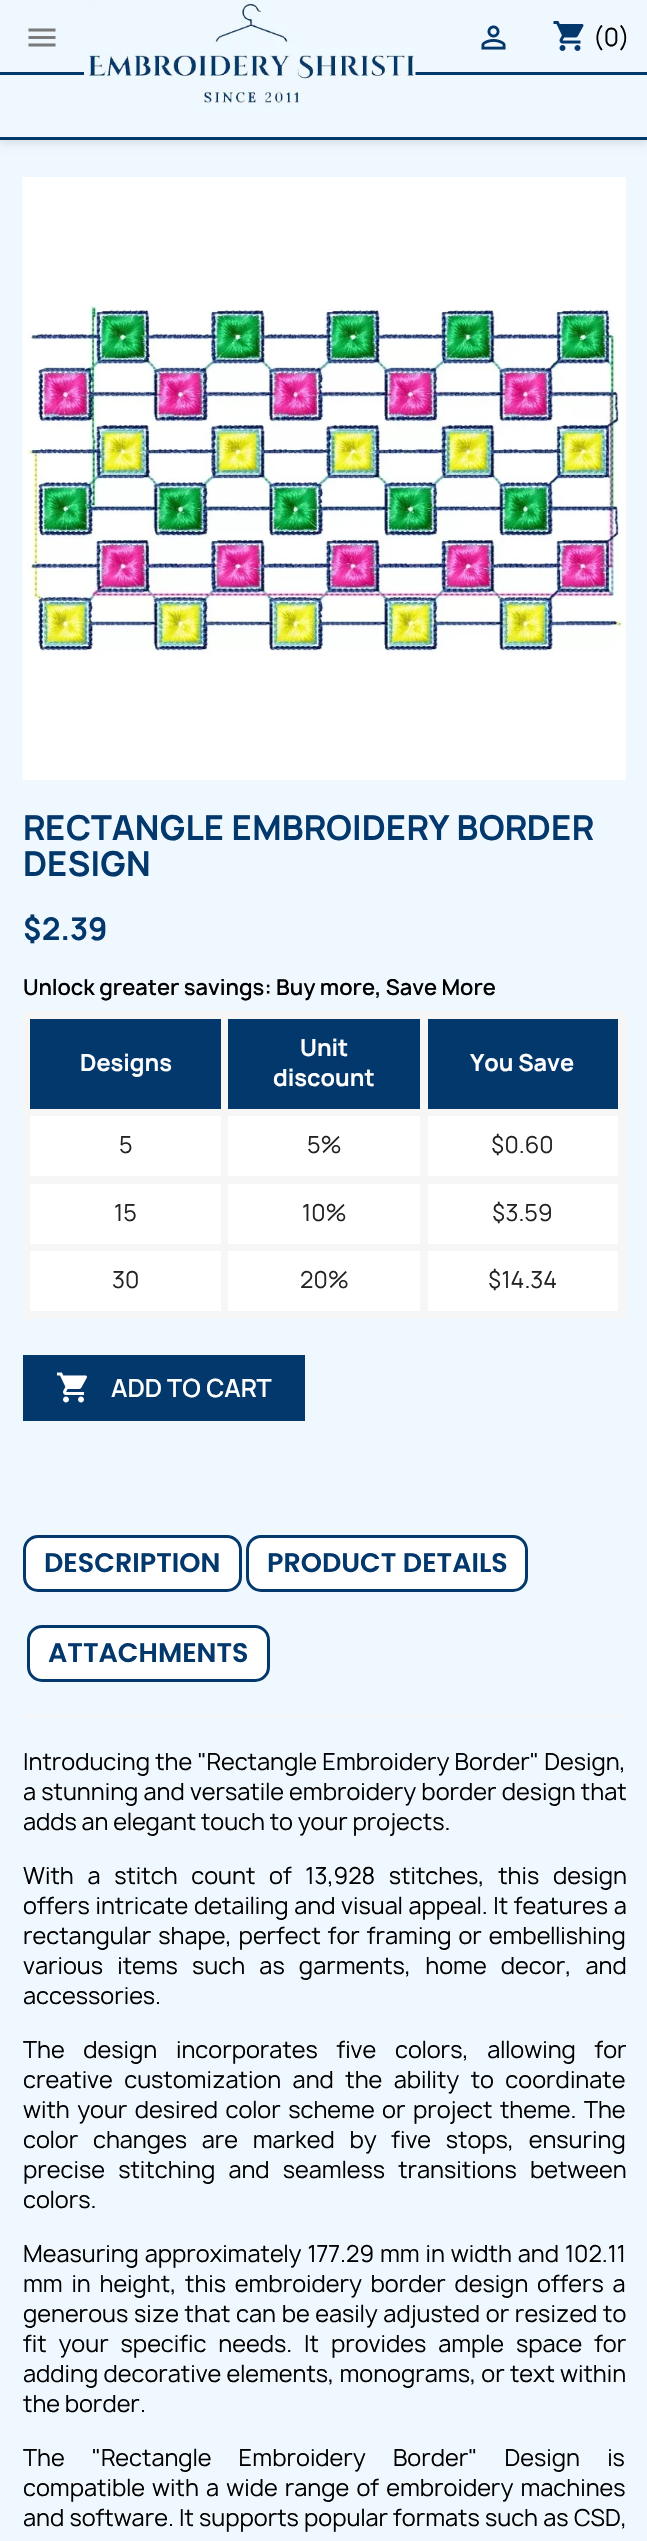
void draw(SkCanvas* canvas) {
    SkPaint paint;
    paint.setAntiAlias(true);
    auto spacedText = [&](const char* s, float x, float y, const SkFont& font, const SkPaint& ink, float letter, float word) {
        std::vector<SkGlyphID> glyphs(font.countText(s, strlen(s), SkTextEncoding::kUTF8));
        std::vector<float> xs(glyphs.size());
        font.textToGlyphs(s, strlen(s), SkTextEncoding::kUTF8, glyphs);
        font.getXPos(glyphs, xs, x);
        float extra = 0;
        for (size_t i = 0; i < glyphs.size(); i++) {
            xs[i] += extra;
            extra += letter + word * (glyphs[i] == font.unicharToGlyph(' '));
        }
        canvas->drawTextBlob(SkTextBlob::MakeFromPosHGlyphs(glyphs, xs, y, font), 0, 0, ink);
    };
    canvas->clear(0xFFEFF8FF);
    paint.setColor(0x1C000000);
    paint.setMaskFilter(SkMaskFilter::MakeBlur(kNormal_SkBlurStyle, 4));
    canvas->drawRect(SkRect::MakeXYWH(0, 3, 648, 140), paint);
    paint.setMaskFilter(nullptr);
    paint.setColor(0xFFEFF8FF);
    canvas->drawRect(SkRect::MakeXYWH(0, 0, 647, 137), paint);
    paint.setColor(0xFF03386C);
    canvas->drawRect(SkRect::MakeXYWH(0, 137, 647, 3), paint);
    canvas->drawRect(SkRect::MakeXYWH(0, 72, 647, 3), paint);
    canvas->drawImageRect(SkImages::DeferredFromEncodedData(SkData::MakeFromFileName("img1.png")), SkRect::MakeXYWH(28, 28, 28, 19), SkSamplingOptions());
    canvas->drawImageRect(SkImages::DeferredFromEncodedData(SkData::MakeFromFileName("img2.png")), SkRect::MakeXYWH(84, 0, 332, 108), SkSamplingOptions());
    canvas->drawImageRect(SkImages::DeferredFromEncodedData(SkData::MakeFromFileName("img3.png")), SkRect::MakeXYWH(481, 25, 25, 25), SkSamplingOptions());
    canvas->drawImageRect(SkImages::DeferredFromEncodedData(SkData::MakeFromFileName("img4.png")), SkRect::MakeXYWH(553, 21, 31, 30), SkSamplingOptions());
    SkFont font1(fontMgr->matchFamilyStyle("Manrope", SkFontStyle::Normal()), 24);
    font1.setSubpixel(true);
    paint.setColor(0xFF000000);
    canvas->drawString("(0)", 593, 46, font1, paint);
    paint.setColor(0xFFFFFFFF);
    canvas->drawRect(SkRect::MakeXYWH(625, 177, 1, 603), paint);
    canvas->drawImageRect(SkImages::DeferredFromEncodedData(SkData::MakeFromFileName("img5.png")), SkRect::MakeXYWH(22, 177, 604, 603), SkSamplingOptions());
    SkFont font2(fontMgr->matchFamilyStyle("Manrope", SkFontStyle::Bold()), 33);
    font2.setSubpixel(true);
    paint.setColor(0xFF03386C);
    canvas->drawString("RECTANGLE EMBROIDERY BORDER", 23, 840, font2, paint);
    canvas->drawString("DESIGN", 23, 876, font2, paint);
    SkFont font3(fontMgr->matchFamilyStyle("Manrope", SkFontStyle::Bold()), 30);
    font3.setSubpixel(true);
    canvas->drawString("$2.39", 23, 940, font3, paint);
    SkFont font4(fontMgr->matchFamilyStyle("Manrope", SkFontStyle(600, SkFontStyle::kNormal_Width, SkFontStyle::kUpright_Slant)), 21);
    font4.setSubpixel(true);
    paint.setColor(0xFF000000);
    canvas->drawString("Unlock greater savings: Buy more, Save More", 23, 995, font4, paint);
    paint.setColor(0xFF03386C);
    canvas->drawRect(SkRect::MakeXYWH(30, 1019, 191, 90), paint);
    paint.setColor(0xFFF6F6F6);
    canvas->drawRect(SkRect::MakeXYWH(420, 1011, 206, 8), paint);
    canvas->drawRect(SkRect::MakeXYWH(420, 1109, 206, 7), paint);
    paint.setColor(0xFFFFFFFF);
    canvas->drawRect(SkRect::MakeXYWH(30, 1116, 588, 60), paint);
    paint.setColor(0xFFF6F6F6);
    canvas->drawRect(SkRect::MakeXYWH(420, 1176, 206, 8), paint);
    paint.setColor(0xFFFFFFFF);
    canvas->drawRect(SkRect::MakeXYWH(30, 1184, 588, 60), paint);
    paint.setColor(0xFFF6F6F6);
    canvas->drawRect(SkRect::MakeXYWH(420, 1244, 206, 7), paint);
    paint.setColor(0xFFFFFFFF);
    canvas->drawRect(SkRect::MakeXYWH(30, 1251, 588, 60), paint);
    paint.setColor(0xFFF6F6F6);
    canvas->drawRect(SkRect::MakeXYWH(618, 1244, 8, 75), paint);
    canvas->drawRect(SkRect::MakeXYWH(420, 1311, 206, 8), paint);
    canvas->drawRect(SkRect::MakeXYWH(420, 1244, 8, 75), paint);
    canvas->drawRect(SkRect::MakeXYWH(221, 1244, 207, 7), paint);
    canvas->drawRect(SkRect::MakeXYWH(420, 1176, 8, 75), paint);
    canvas->drawRect(SkRect::MakeXYWH(221, 1176, 207, 8), paint);
    canvas->drawRect(SkRect::MakeXYWH(420, 1109, 8, 75), paint);
    canvas->drawRect(SkRect::MakeXYWH(221, 1109, 207, 7), paint);
    canvas->drawRect(SkRect::MakeXYWH(420, 1011, 8, 105), paint);
    canvas->drawRect(SkRect::MakeXYWH(221, 1011, 207, 8), paint);
    canvas->drawRect(SkRect::MakeXYWH(221, 1311, 207, 8), paint);
    canvas->drawRect(SkRect::MakeXYWH(221, 1244, 7, 75), paint);
    canvas->drawRect(SkRect::MakeXYWH(23, 1244, 205, 7), paint);
    canvas->drawRect(SkRect::MakeXYWH(221, 1176, 7, 75), paint);
    canvas->drawRect(SkRect::MakeXYWH(23, 1176, 205, 8), paint);
    canvas->drawRect(SkRect::MakeXYWH(221, 1109, 7, 75), paint);
    canvas->drawRect(SkRect::MakeXYWH(23, 1109, 205, 7), paint);
    canvas->drawRect(SkRect::MakeXYWH(221, 1011, 7, 105), paint);
    canvas->drawRect(SkRect::MakeXYWH(23, 1011, 205, 8), paint);
    canvas->drawRect(SkRect::MakeXYWH(23, 1311, 205, 8), paint);
    canvas->drawRect(SkRect::MakeXYWH(23, 1244, 7, 75), paint);
    canvas->drawRect(SkRect::MakeXYWH(23, 1176, 7, 75), paint);
    canvas->drawRect(SkRect::MakeXYWH(23, 1109, 7, 75), paint);
    canvas->drawRect(SkRect::MakeXYWH(23, 1011, 7, 105), paint);
    SkFont font5(fontMgr->matchFamilyStyle("Manrope", SkFontStyle::Bold()), 22.5f);
    font5.setSubpixel(true);
    paint.setColor(0xFFFFFFFF);
    canvas->drawString("Designs", 80, 1071, font5, paint);
    paint.setColor(0xFF03386C);
    canvas->drawRect(SkRect::MakeXYWH(228, 1019, 192, 90), paint);
    paint.setColor(0xFFFFFFFF);
    canvas->drawString("Unit", 300, 1056, font5, paint);
    canvas->drawString("discount", 273, 1086, font5, paint);
    paint.setColor(0xFF03386C);
    canvas->drawRect(SkRect::MakeXYWH(428, 1019, 190, 90), paint);
    paint.setColor(0xFFF6F6F6);
    canvas->drawRect(SkRect::MakeXYWH(618, 1176, 8, 75), paint);
    canvas->drawRect(SkRect::MakeXYWH(618, 1109, 8, 75), paint);
    canvas->drawRect(SkRect::MakeXYWH(618, 1011, 8, 105), paint);
    paint.setColor(0xFFFFFFFF);
    canvas->drawString("You Save", 470, 1071, font5, paint);
    SkFont font6(fontMgr->matchFamilyStyle("Manrope", SkFontStyle::Normal()), 22.5f);
    font6.setSubpixel(true);
    paint.setColor(0xFF232323);
    canvas->drawString("5", 119, 1153, font6, paint);
    canvas->drawString("5%", 307, 1153, font6, paint);
    canvas->drawString("$0.60", 491, 1153, font6, paint);
    canvas->drawString("15", 114, 1221, font6, paint);
    canvas->drawString("10%", 302, 1221, font6, paint);
    canvas->drawString("$3.59", 492, 1221, font6, paint);
    canvas->drawString("30", 112, 1288, font6, paint);
    canvas->drawString("20%", 300, 1288, font6, paint);
    canvas->drawString("$14.34", 488, 1288, font6, paint);
    paint.setColor(0xFF03386C);
    canvas->drawRect(SkRect::MakeXYWH(23, 1355, 282, 66), paint);
    canvas->drawImageRect(SkImages::DeferredFromEncodedData(SkData::MakeFromFileName("img6.png")), SkRect::MakeXYWH(56, 1372, 31, 31), SkSamplingOptions());
    SkFont font7(fontMgr->matchFamilyStyle("Manrope", SkFontStyle(600, SkFontStyle::kNormal_Width, SkFontStyle::kUpright_Slant)), 24);
    font7.setSubpixel(true);
    paint.setColor(0xFFFFFFFF);
    canvas->drawString("ADD TO CART", 111, 1397, font7, paint);
    paint.setColor(0xFFF6F6F6);
    canvas->drawRect(SkRect::MakeXYWH(23, 1715, 603, 3), paint);
    paint.setColor(0xFFFFFFFF);
    canvas->drawRoundRect(SkRect::MakeXYWH(24.5f, 1536.5f, 216, 54), 13.5f, 13.5f, paint);
    paint.setStyle(SkPaint::kStroke_Style);
    paint.setStrokeWidth(3);
    paint.setColor(0xFF03386C);
    canvas->drawRoundRect(SkRect::MakeXYWH(24.5f, 1536.5f, 216, 54), 13.5f, 13.5f, paint);
    SkFont font8(fontMgr->matchFamilyStyle("Poppins", SkFontStyle(600, SkFontStyle::kNormal_Width, SkFontStyle::kUpright_Slant)), 27);
    font8.setSubpixel(true);
    paint.setStyle(SkPaint::kFill_Style);
    canvas->drawString("DESCRIPTION", 44, 1572, font8, paint);
    paint.setColor(0xFFFFFFFF);
    canvas->drawRoundRect(SkRect::MakeXYWH(247.5f, 1536.5f, 279, 54), 13.5f, 13.5f, paint);
    paint.setStyle(SkPaint::kStroke_Style);
    paint.setColor(0xFF03386C);
    canvas->drawRoundRect(SkRect::MakeXYWH(247.5f, 1536.5f, 279, 54), 13.5f, 13.5f, paint);
    paint.setStyle(SkPaint::kFill_Style);
    canvas->drawString("PRODUCT DETAILS", 267, 1572, font8, paint);
    paint.setColor(0xFFFFFFFF);
    canvas->drawRoundRect(SkRect::MakeXYWH(28.5f, 1626.5f, 240, 54), 13.5f, 13.5f, paint);
    paint.setStyle(SkPaint::kStroke_Style);
    paint.setColor(0xFF03386C);
    canvas->drawRoundRect(SkRect::MakeXYWH(28.5f, 1626.5f, 240, 54), 13.5f, 13.5f, paint);
    paint.setStyle(SkPaint::kFill_Style);
    canvas->drawString("ATTACHMENTS", 48, 1662, font8, paint);
    paint.setColor(0xFF000000);
    spacedText("Introducing the \"Rectangle Embroidery Border\" Design,", 23, 1770, font6, paint, 0, 0.5f);
    spacedText("a stunning and versatile embroidery border design that", 23, 1800, font6, paint, 0, 0.5f);
    canvas->drawString("adds an elegant touch to your projects.", 23, 1830, font6, paint);
    spacedText("With a stitch count of 13,928 stitches, this design", 23, 1884, font6, paint, 0, 9);
    spacedText("offers intricate detailing and visual appeal. It features a", 23, 1914, font6, paint, 0, 1);
    spacedText("rectangular shape, perfect for framing or embellishing", 23, 1944, font6, paint, 0, 2.25f);
    spacedText("various items such as garments, home decor, and", 23, 1974, font6, paint, 0, 9.5f);
    canvas->drawString("accessories.", 23, 2004, font6, paint);
    spacedText("The design incorporates five colors, allowing for", 23, 2058, font6, paint, 0, 14);
    spacedText("creative customization and the ability to coordinate", 23, 2088, font6, paint, 0, 6.75f);
    spacedText("with your desired color scheme or project theme. The", 23, 2118, font6, paint, 0, 2.75f);
    spacedText("color changes are marked by five stops, ensuring", 23, 2148, font6, paint, 0, 10);
    spacedText("precise stitching and seamless transitions between", 23, 2178, font6, paint, 0, 8.5f);
    canvas->drawString("colors.", 23, 2208, font6, paint);
    spacedText("Measuring approximately 177.29 mm in width and 102.11", 23, 2262, font6, paint, 0, 1.25f);
    spacedText("mm in height, this embroidery border design offers a", 23, 2292, font6, paint, 0, 4);
    spacedText("generous size that can be easily adjusted or resized to", 23, 2322, font6, paint, 0, 1);
    spacedText("fit your specific needs. It provides ample space for", 23, 2352, font6, paint, 0, 7.25f);
    spacedText("adding decorative elements, monograms, or text within", 23, 2382, font6, paint, 0, 0.5f);
    canvas->drawString("the border.", 23, 2412, font6, paint);
    spacedText("The \"Rectangle Embroidery Border\" Design is", 23, 2466, font6, paint, 0, 22.5f);
    spacedText("compatible with a wide range of embroidery machines", 23, 2496, font6, paint, 0, 2.5f);
    spacedText("and software. It supports popular formats such as CSD,", 23, 2526, font6, paint, 0, 0.5f);
}
